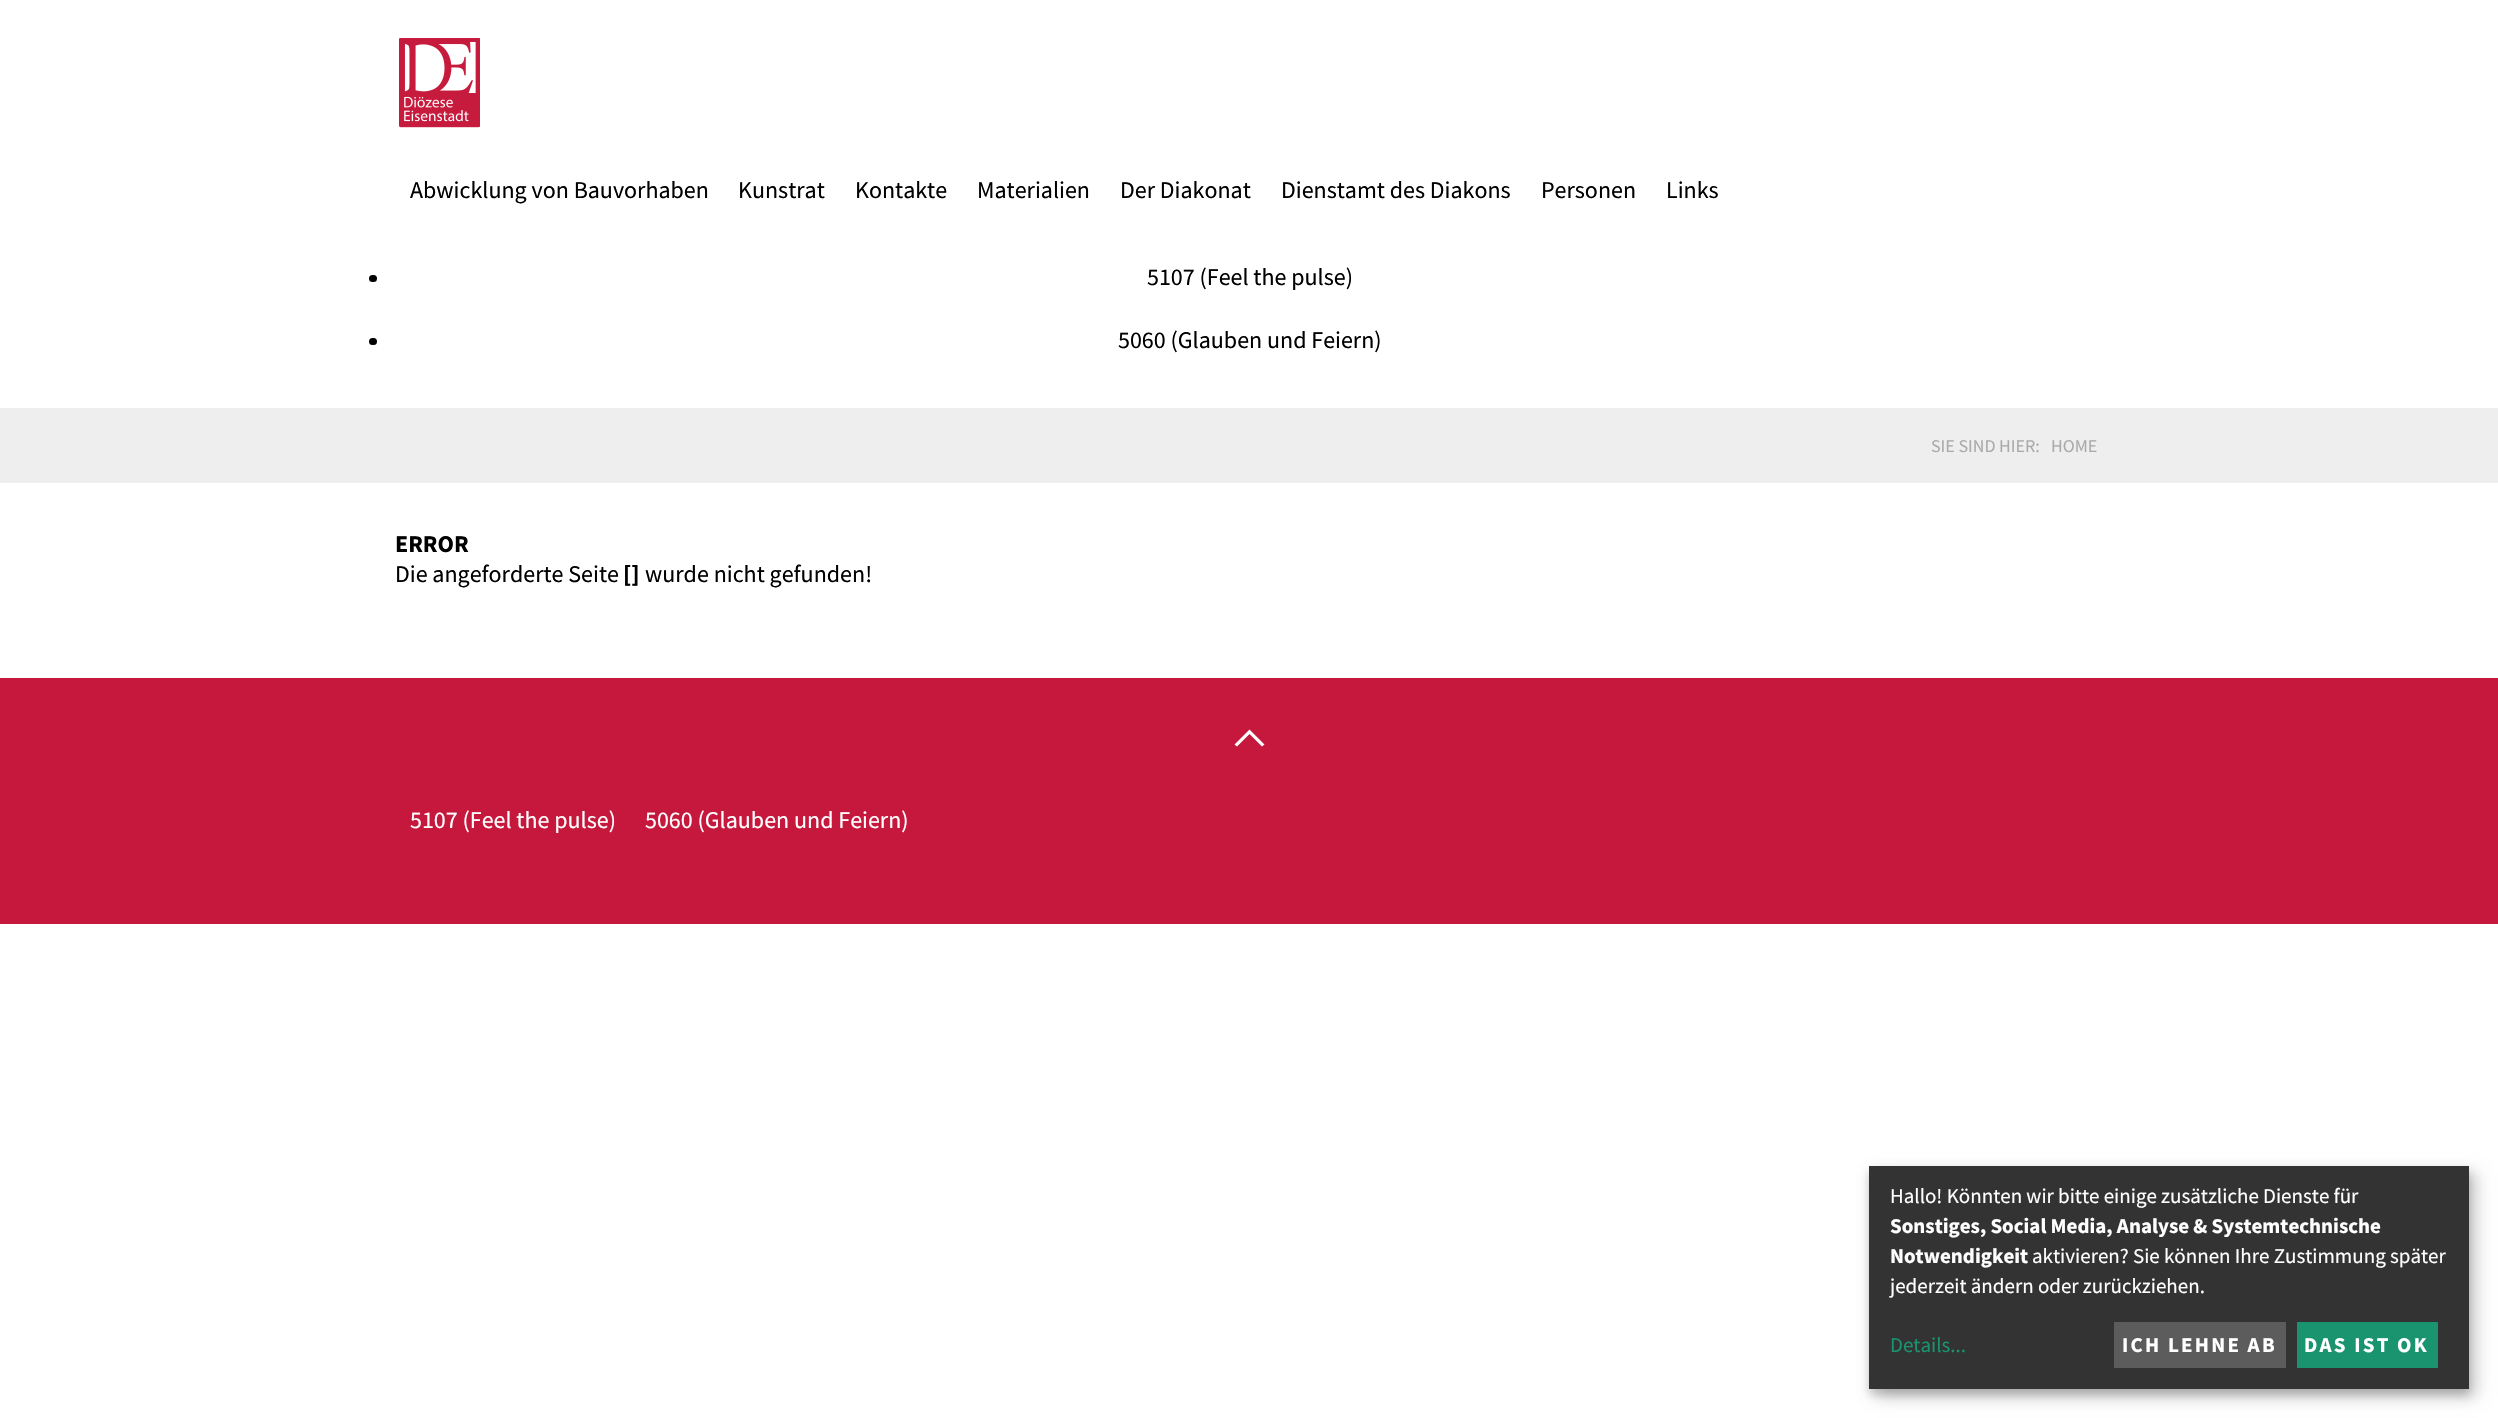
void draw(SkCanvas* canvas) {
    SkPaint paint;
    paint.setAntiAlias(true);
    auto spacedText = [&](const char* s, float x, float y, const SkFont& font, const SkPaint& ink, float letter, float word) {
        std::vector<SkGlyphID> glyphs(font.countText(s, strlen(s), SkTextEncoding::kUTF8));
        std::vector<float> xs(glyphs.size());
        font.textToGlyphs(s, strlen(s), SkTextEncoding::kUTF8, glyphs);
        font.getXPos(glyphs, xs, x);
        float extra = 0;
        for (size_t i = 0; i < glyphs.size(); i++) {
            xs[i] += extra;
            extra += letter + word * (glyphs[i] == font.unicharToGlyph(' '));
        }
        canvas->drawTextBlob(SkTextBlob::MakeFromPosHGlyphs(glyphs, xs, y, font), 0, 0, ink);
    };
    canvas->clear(0xFFFFFFFF);
    canvas->drawImageRect(SkImages::DeferredFromEncodedData(SkData::MakeFromFileName("img1.png")), SkRect::MakeXYWH(399, 38, 81, 90), SkSamplingOptions());
    SkFont font1(fontMgr->matchFamilyStyle("Source Sans Pro", SkFontStyle::Normal()), 24);
    font1.setSubpixel(true);
    paint.setColor(0xFF000000);
    canvas->drawString("Abwicklung von Bauvorhaben", 410, 198, font1, paint);
    canvas->drawString("Kunstrat", 738, 198, font1, paint);
    canvas->drawString("Kontakte", 855, 198, font1, paint);
    canvas->drawString("Materialien", 977, 198, font1, paint);
    canvas->drawString("Der Diakonat", 1120, 198, font1, paint);
    canvas->drawString("Dienstamt des Diakons", 1281, 198, font1, paint);
    canvas->drawString("Personen", 1541, 198, font1, paint);
    canvas->drawString("Links", 1666, 198, font1, paint);
    canvas->drawRoundRect(SkRect::MakeXYWH(369, 275, 8, 7), 3.5f, 3.5f, paint);
    canvas->drawString("5107 (Feel the pulse)", 1147, 285, font1, paint);
    canvas->drawRoundRect(SkRect::MakeXYWH(369, 338, 8, 7), 3.5f, 3.5f, paint);
    canvas->drawString("5060 (Glauben und Feiern)", 1118, 348, font1, paint);
    paint.setColor(0xFFEEEEEE);
    canvas->drawRect(SkRect::MakeXYWH(0, 408, 2498, 75), paint);
    SkFont font2(fontMgr->matchFamilyStyle("Source Sans Pro", SkFontStyle::Normal()), 18);
    font2.setSubpixel(true);
    paint.setColor(0xFFAAAAAA);
    canvas->drawString("SIE SIND HIER:", 1931, 452, font2, paint);
    canvas->drawString("HOME", 2051, 452, font2, paint);
    SkFont font3(fontMgr->matchFamilyStyle("Source Sans Pro", SkFontStyle::Bold()), 24);
    font3.setSubpixel(true);
    paint.setColor(0xFF000000);
    canvas->drawString("ERROR", 395, 552, font3, paint);
    canvas->drawString("Die angeforderte Seite", 395, 582, font1, paint);
    canvas->drawString("[]", 623, 582, font3, paint);
    canvas->drawString("wurde nicht gefunden!", 645, 582, font1, paint);
    paint.setColor(0xFFC6183D);
    canvas->drawRect(SkRect::MakeXYWH(0, 678, 2498, 246), paint);
    paint.setColor(0xFFFFFFFF);
    canvas->drawPath(SkPathBuilder().moveTo(1237, 746.5f).lineTo(1234.5f, 744.5f).lineTo(1249.5f, 729.5f).lineTo(1264.5f, 744.5f).lineTo(1262, 746.5f).lineTo(1249.5f, 734).close().detach(), paint);
    canvas->drawString("5107 (Feel the pulse)", 410, 828, font1, paint);
    canvas->drawString("5060 (Glauben und Feiern)", 645, 828, font1, paint);
    paint.setColor(0x30000000);
    paint.setMaskFilter(SkMaskFilter::MakeBlur(kNormal_SkBlurStyle, 7.5f));
    canvas->drawRect(SkRect::MakeXYWH(1877, 1173, 600, 224), paint);
    paint.setMaskFilter(nullptr);
    paint.setColor(0x33000000);
    paint.setMaskFilter(SkMaskFilter::MakeBlur(kNormal_SkBlurStyle, 4.5f));
    canvas->drawRect(SkRect::MakeXYWH(1869, 1172, 600, 223), paint);
    paint.setMaskFilter(nullptr);
    paint.setColor(0xFF333333);
    canvas->drawRect(SkRect::MakeXYWH(1869, 1166, 600, 223), paint);
    SkFont font4(fontMgr->matchFamilyStyle("Source Sans Pro", SkFontStyle::Normal()), 21);
    font4.setSubpixel(true);
    paint.setColor(0xFFFFFFFF);
    canvas->drawString("Hallo! Könnten wir bitte einige zusätzliche Dienste für", 1890, 1203, font4, paint);
    SkFont font5(fontMgr->matchFamilyStyle("Source Sans Pro", SkFontStyle::Bold()), 21);
    font5.setSubpixel(true);
    canvas->drawString("Sonstiges, Social Media, Analyse & Systemtechnische", 1890, 1233, font5, paint);
    canvas->drawString("Notwendigkeit", 1890, 1263, font5, paint);
    canvas->drawString("aktivieren? Sie können Ihre Zustimmung später", 2032, 1263, font4, paint);
    canvas->drawString("jederzeit ändern oder zurückziehen.", 1890, 1293, font4, paint);
    paint.setColor(0xFF1A936F);
    canvas->drawString("Details...", 1890, 1352, font4, paint);
    paint.setColor(0xFF5C5C5C);
    canvas->drawRect(SkRect::MakeXYWH(2114, 1322, 172, 46), paint);
    paint.setColor(0xFFFFFFFF);
    spacedText("ICH LEHNE AB", 2122, 1352, font5, paint, 2.25f, 0);
    paint.setColor(0xFF1A936F);
    canvas->drawRect(SkRect::MakeXYWH(2297, 1322, 141, 46), paint);
    paint.setColor(0xFFFFFFFF);
    spacedText("DAS IST OK", 2304, 1352, font5, paint, 2.25f, 0);
}
